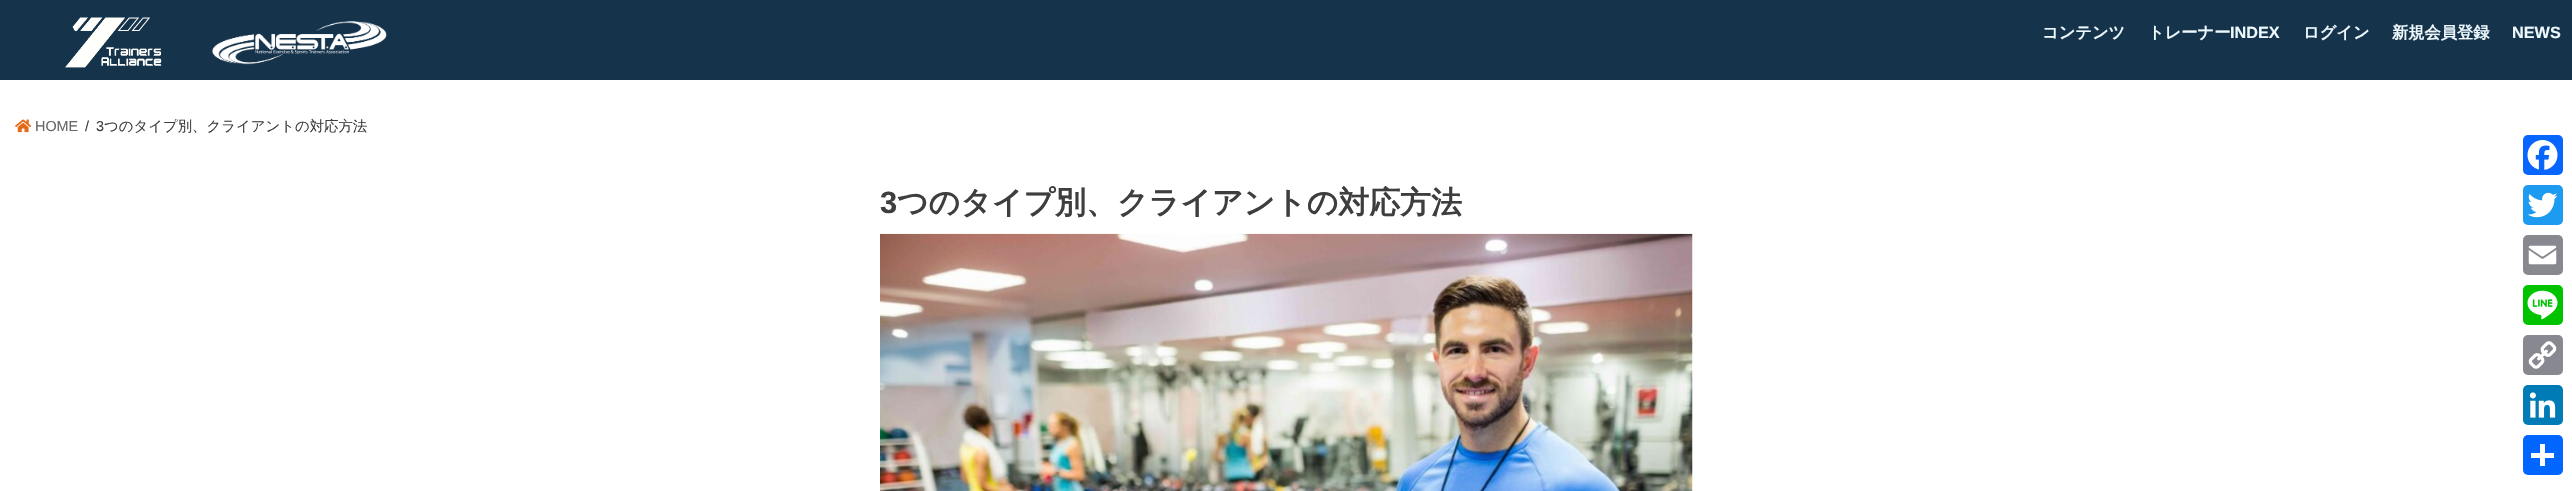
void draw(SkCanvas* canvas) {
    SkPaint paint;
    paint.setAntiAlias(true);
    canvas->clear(0xFFFFFFFF);
    paint.setColor(0xFF16334C);
    canvas->drawRect(SkRect::MakeXYWH(0, 0, 2572, 80), paint);
    canvas->drawImageRect(SkImages::DeferredFromEncodedData(SkData::MakeFromFileName("img1.png")), SkRect::MakeXYWH(65, 17, 97, 51), SkSamplingOptions());
    canvas->drawImageRect(SkImages::DeferredFromEncodedData(SkData::MakeFromFileName("img2.png")), SkRect::MakeXYWH(212, 21, 175, 44), SkSamplingOptions());
    SkFont font1(fontMgr->matchFamilyStyle("WenQuanYi Zen Hei", SkFontStyle::Bold()), 16.25f);
    font1.setSubpixel(true);
    paint.setColor(0xFFEDF9FC);
    canvas->drawString("コンテンツ", 2042, 38, font1, paint);
    canvas->drawString("トレーナー", 2148, 38, font1, paint);
    SkFont font2(fontMgr->matchFamilyStyle("Liberation Sans", SkFontStyle::Bold()), 16.25f);
    font2.setSubpixel(true);
    canvas->drawString("INDEX", 2230, 38, font2, paint);
    canvas->drawString("ログイン", 2303, 38, font1, paint);
    canvas->drawString("新規会員登録", 2392, 38, font1, paint);
    canvas->drawString("NEWS", 2512, 38, font2, paint);
    canvas->drawImageRect(SkImages::DeferredFromEncodedData(SkData::MakeFromFileName("img3.png")), SkRect::MakeXYWH(15, 119, 17, 14), SkSamplingOptions());
    SkFont font3(fontMgr->matchFamilyStyle("Liberation Sans", SkFontStyle::Normal()), 14.4f);
    font3.setSubpixel(true);
    paint.setColor(0xFF666666);
    canvas->drawString("HOME", 35, 131, font3, paint);
    paint.setColor(0xFF3E3E3E);
    canvas->drawString("/", 85, 131, font3, paint);
    canvas->drawString("3", 96, 131, font3, paint);
    SkFont font4(fontMgr->matchFamilyStyle("WenQuanYi Zen Hei", SkFontStyle(500, SkFontStyle::kNormal_Width, SkFontStyle::kUpright_Slant)), 14.4f);
    font4.setSubpixel(true);
    canvas->drawString("つのタイプ別、クライアントの対応方法", 104, 131, font4, paint);
    SkFont font5(fontMgr->matchFamilyStyle("Liberation Sans", SkFontStyle::Bold()), 30.9f);
    font5.setSubpixel(true);
    canvas->drawString("3", 880, 213, font5, paint);
    SkFont font6(fontMgr->matchFamilyStyle("WenQuanYi Zen Hei", SkFontStyle::Bold()), 30.9f);
    font6.setSubpixel(true);
    canvas->drawString("つのタイプ別、クライアントの対応方法", 897, 213, font6, paint);
    canvas->drawImageRect(SkImages::DeferredFromEncodedData(SkData::MakeFromFileName("img4.png")), SkRect::MakeXYWH(880, 233, 813, 258), SkSamplingOptions());
    paint.setColor(0xFF0866FF);
    canvas->drawRoundRect(SkRect::MakeXYWH(2523, 135, 40, 40), 5, 5, paint);
    canvas->drawImageRect(SkImages::DeferredFromEncodedData(SkData::MakeFromFileName("img5.png")), SkRect::MakeXYWH(2527, 140, 31, 30), SkSamplingOptions());
    paint.setColor(0xFF1D9BF0);
    canvas->drawRoundRect(SkRect::MakeXYWH(2523, 185, 40, 40), 5, 5, paint);
    canvas->drawImageRect(SkImages::DeferredFromEncodedData(SkData::MakeFromFileName("img6.png")), SkRect::MakeXYWH(2527, 192, 31, 26), SkSamplingOptions());
    paint.setColor(0xFF888990);
    canvas->drawRoundRect(SkRect::MakeXYWH(2523, 235, 40, 40), 5, 5, paint);
    canvas->drawImageRect(SkImages::DeferredFromEncodedData(SkData::MakeFromFileName("img7.png")), SkRect::MakeXYWH(2528, 245, 29, 20), SkSamplingOptions());
    paint.setColor(0xFF00C300);
    canvas->drawRoundRect(SkRect::MakeXYWH(2523, 285, 40, 40), 5, 5, paint);
    canvas->drawImageRect(SkImages::DeferredFromEncodedData(SkData::MakeFromFileName("img8.png")), SkRect::MakeXYWH(2527, 290, 31, 30), SkSamplingOptions());
    paint.setColor(0xFF888990);
    canvas->drawRoundRect(SkRect::MakeXYWH(2523, 335, 40, 40), 5, 5, paint);
    canvas->drawImageRect(SkImages::DeferredFromEncodedData(SkData::MakeFromFileName("img9.png")), SkRect::MakeXYWH(2528, 341, 29, 28), SkSamplingOptions());
    paint.setColor(0xFF007BB5);
    canvas->drawRoundRect(SkRect::MakeXYWH(2523, 385, 40, 40), 5, 5, paint);
    canvas->drawImageRect(SkImages::DeferredFromEncodedData(SkData::MakeFromFileName("img10.png")), SkRect::MakeXYWH(2529, 392, 27, 26), SkSamplingOptions());
    paint.setColor(0xFF0166FF);
    canvas->drawRoundRect(SkRect::MakeXYWH(2523, 435, 40, 40), 5, 5, paint);
    paint.setColor(0xFFFFFFFF);
    canvas->drawRect(SkRect::MakeXYWH(2540, 444, 5, 22), paint);
    canvas->drawRect(SkRect::MakeXYWH(2531, 453, 23, 5), paint);
}
